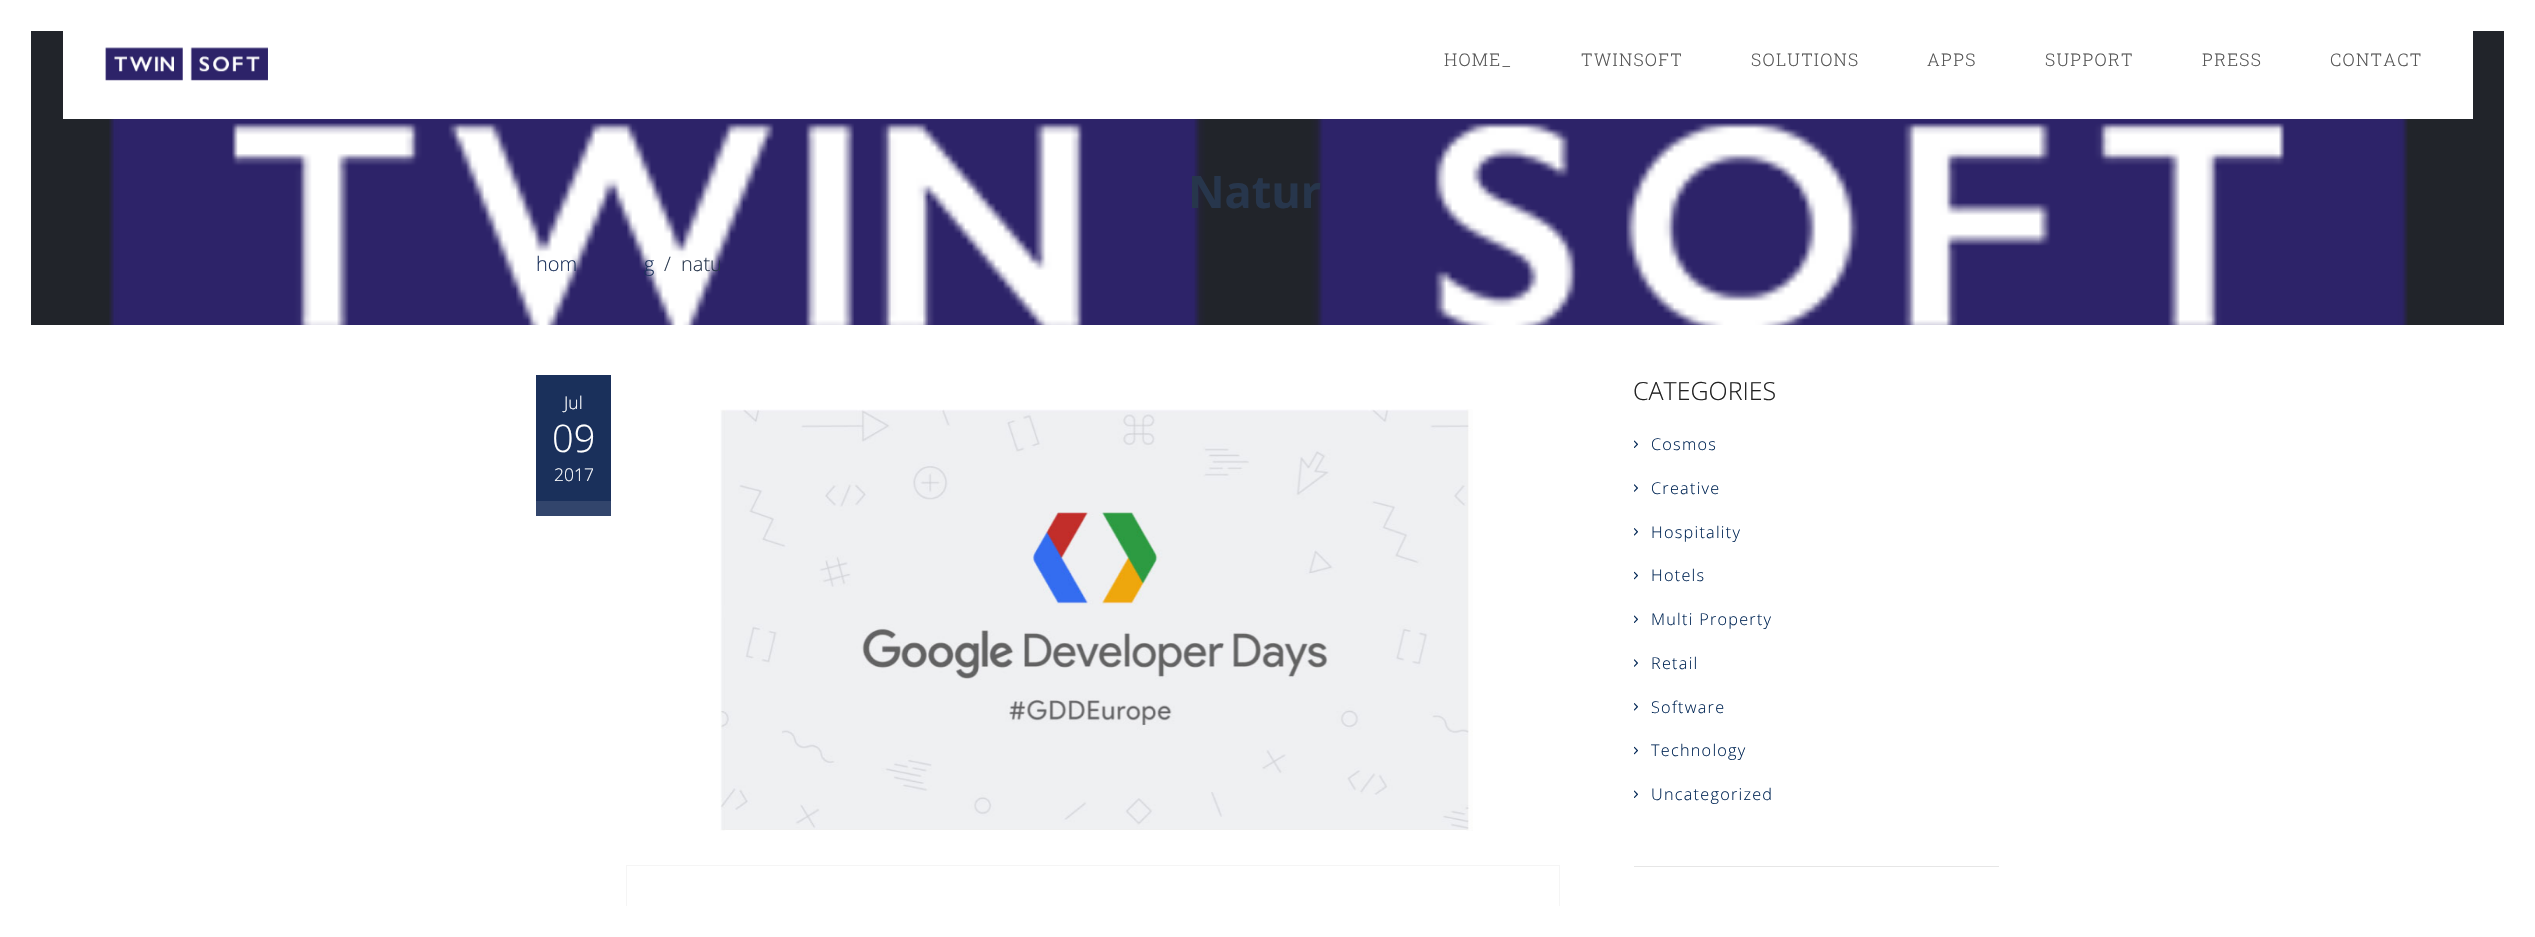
void draw(SkCanvas* canvas) {
    SkPaint paint;
    paint.setAntiAlias(true);
    auto spacedText = [&](const char* s, float x, float y, const SkFont& font, const SkPaint& ink, float letter, float word) {
        std::vector<SkGlyphID> glyphs(font.countText(s, strlen(s), SkTextEncoding::kUTF8));
        std::vector<float> xs(glyphs.size());
        font.textToGlyphs(s, strlen(s), SkTextEncoding::kUTF8, glyphs);
        font.getXPos(glyphs, xs, x);
        float extra = 0;
        for (size_t i = 0; i < glyphs.size(); i++) {
            xs[i] += extra;
            extra += letter + word * (glyphs[i] == font.unicharToGlyph(' '));
        }
        canvas->drawTextBlob(SkTextBlob::MakeFromPosHGlyphs(glyphs, xs, y, font), 0, 0, ink);
    };
    canvas->clear(0xFFFFFFFF);
    paint.setColor(0xFF21242A);
    canvas->drawRect(SkRect::MakeXYWH(31, 31, 2473, 294), paint);
    canvas->drawImageRect(SkImages::DeferredFromEncodedData(SkData::MakeFromFileName("img1.png")), SkRect::MakeXYWH(109, 119, 2299, 206), SkSamplingOptions());
    paint.setColor(0xFFFFFFFF);
    canvas->drawRect(SkRect::MakeXYWH(63, 31, 2410, 88), paint);
    canvas->drawImageRect(SkImages::DeferredFromEncodedData(SkData::MakeFromFileName("img2.png")), SkRect::MakeXYWH(105, 47, 163, 34), SkSamplingOptions());
    SkFont font1(fontMgr->matchFamilyStyle("Roboto Slab", SkFontStyle(300, SkFontStyle::kNormal_Width, SkFontStyle::kUpright_Slant)), 17.5f);
    font1.setSubpixel(true);
    paint.setColor(0xFF555555);
    spacedText("HOME_", 1444, 66, font1, paint, 1.25f, 0);
    spacedText("TWINSOFT", 1581, 66, font1, paint, 1.25f, 0);
    spacedText("SOLUTIONS", 1751, 66, font1, paint, 1.25f, 0);
    spacedText("APPS", 1927, 66, font1, paint, 1.25f, 0);
    spacedText("SUPPORT", 2045, 66, font1, paint, 1.25f, 0);
    spacedText("PRESS", 2202, 66, font1, paint, 1.25f, 0);
    spacedText("CONTACT", 2330, 66, font1, paint, 1.25f, 0);
    SkFont font2(fontMgr->matchFamilyStyle("Open Sans", SkFontStyle::Bold()), 45);
    font2.setSubpixel(true);
    paint.setColor(0xFF27364C);
    canvas->drawString("Natur", 1188, 208, font2, paint);
    SkFont font3(fontMgr->matchFamilyStyle("Open Sans", SkFontStyle(300, SkFontStyle::kNormal_Width, SkFontStyle::kUpright_Slant)), 20);
    font3.setSubpixel(true);
    paint.setColor(0xFF1A305B);
    canvas->drawString("hom", 536, 271, font3, paint);
    canvas->drawString("g", 644, 271, font3, paint);
    paint.setColor(0xFF27364C);
    canvas->drawString("/", 664, 271, font3, paint);
    canvas->drawString("natu", 681, 271, font3, paint);
    paint.setColor(0xFF1A305B);
    canvas->drawRect(SkRect::MakeXYWH(536, 375, 75, 126), paint);
    SkFont font4(fontMgr->matchFamilyStyle("Open Sans", SkFontStyle(300, SkFontStyle::kNormal_Width, SkFontStyle::kUpright_Slant)), 17.5f);
    font4.setSubpixel(true);
    paint.setColor(0xFFFFFFFF);
    canvas->drawString("Jul", 564, 409, font4, paint);
    SkFont font5(fontMgr->matchFamilyStyle("Open Sans", SkFontStyle(300, SkFontStyle::kNormal_Width, SkFontStyle::kUpright_Slant)), 38);
    font5.setSubpixel(true);
    canvas->drawString("09", 552, 452, font5, paint);
    canvas->drawString("2017", 554, 481, font4, paint);
    paint.setColor(0xFF32456C);
    canvas->drawRect(SkRect::MakeXYWH(536, 501, 75, 15), paint);
    canvas->drawImageRect(SkImages::DeferredFromEncodedData(SkData::MakeFromFileName("img3.png")), SkRect::MakeXYWH(720, 409, 753, 422), SkSamplingOptions());
    paint.setStyle(SkPaint::kStroke_Style);
    paint.setStrokeWidth(1);
    paint.setColor(0xFFF5F5F5);
    canvas->drawRect(SkRect::MakeXYWH(626.5f, 865.5f, 933, 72), paint);
    paint.setStyle(SkPaint::kFill_Style);
    paint.setColor(0xFFE6E6E6);
    canvas->drawRect(SkRect::MakeXYWH(1634, 866, 365, 1), paint);
    SkFont font6(fontMgr->matchFamilyStyle("Open Sans", SkFontStyle(300, SkFontStyle::kNormal_Width, SkFontStyle::kUpright_Slant)), 25);
    font6.setSubpixel(true);
    paint.setColor(0xFF222222);
    canvas->drawString("CATEGORIES", 1633, 400, font6, paint);
    canvas->drawImageRect(SkImages::DeferredFromEncodedData(SkData::MakeFromFileName("img4.png")), SkRect::MakeXYWH(1634, 440, 4, 8), SkSamplingOptions());
    SkFont font7(fontMgr->matchFamilyStyle("Open Sans", SkFontStyle(300, SkFontStyle::kNormal_Width, SkFontStyle::kUpright_Slant)), 16.25f);
    font7.setSubpixel(true);
    paint.setColor(0xFF002554);
    spacedText("Cosmos", 1651, 450, font7, paint, 1.25f, 0);
    canvas->drawImageRect(SkImages::DeferredFromEncodedData(SkData::MakeFromFileName("img5.png")), SkRect::MakeXYWH(1634, 484, 4, 8), SkSamplingOptions());
    spacedText("Creative", 1651, 494, font7, paint, 1.25f, 0);
    canvas->drawImageRect(SkImages::DeferredFromEncodedData(SkData::MakeFromFileName("img6.png")), SkRect::MakeXYWH(1634, 528, 4, 8), SkSamplingOptions());
    spacedText("Hospitality", 1651, 538, font7, paint, 1.25f, 0);
    canvas->drawImageRect(SkImages::DeferredFromEncodedData(SkData::MakeFromFileName("img7.png")), SkRect::MakeXYWH(1634, 571, 4, 9), SkSamplingOptions());
    spacedText("Hotels", 1651, 581, font7, paint, 1.25f, 0);
    canvas->drawImageRect(SkImages::DeferredFromEncodedData(SkData::MakeFromFileName("img4.png")), SkRect::MakeXYWH(1634, 615, 4, 8), SkSamplingOptions());
    spacedText("Multi Property", 1651, 625, font7, paint, 1.25f, 0);
    canvas->drawImageRect(SkImages::DeferredFromEncodedData(SkData::MakeFromFileName("img5.png")), SkRect::MakeXYWH(1634, 659, 4, 8), SkSamplingOptions());
    spacedText("Retail", 1651, 669, font7, paint, 1.25f, 0);
    canvas->drawImageRect(SkImages::DeferredFromEncodedData(SkData::MakeFromFileName("img6.png")), SkRect::MakeXYWH(1634, 703, 4, 8), SkSamplingOptions());
    spacedText("Software", 1651, 713, font7, paint, 1.25f, 0);
    canvas->drawImageRect(SkImages::DeferredFromEncodedData(SkData::MakeFromFileName("img7.png")), SkRect::MakeXYWH(1634, 746, 4, 9), SkSamplingOptions());
    spacedText("Technology", 1651, 756, font7, paint, 1.25f, 0);
    canvas->drawImageRect(SkImages::DeferredFromEncodedData(SkData::MakeFromFileName("img4.png")), SkRect::MakeXYWH(1634, 790, 4, 8), SkSamplingOptions());
    spacedText("Uncategorized", 1651, 800, font7, paint, 1.25f, 0);
    paint.setColor(0xFFFFFFFF);
    canvas->drawRect(SkRect::MakeXYWH(626, 906, 934, 31), paint);
}
